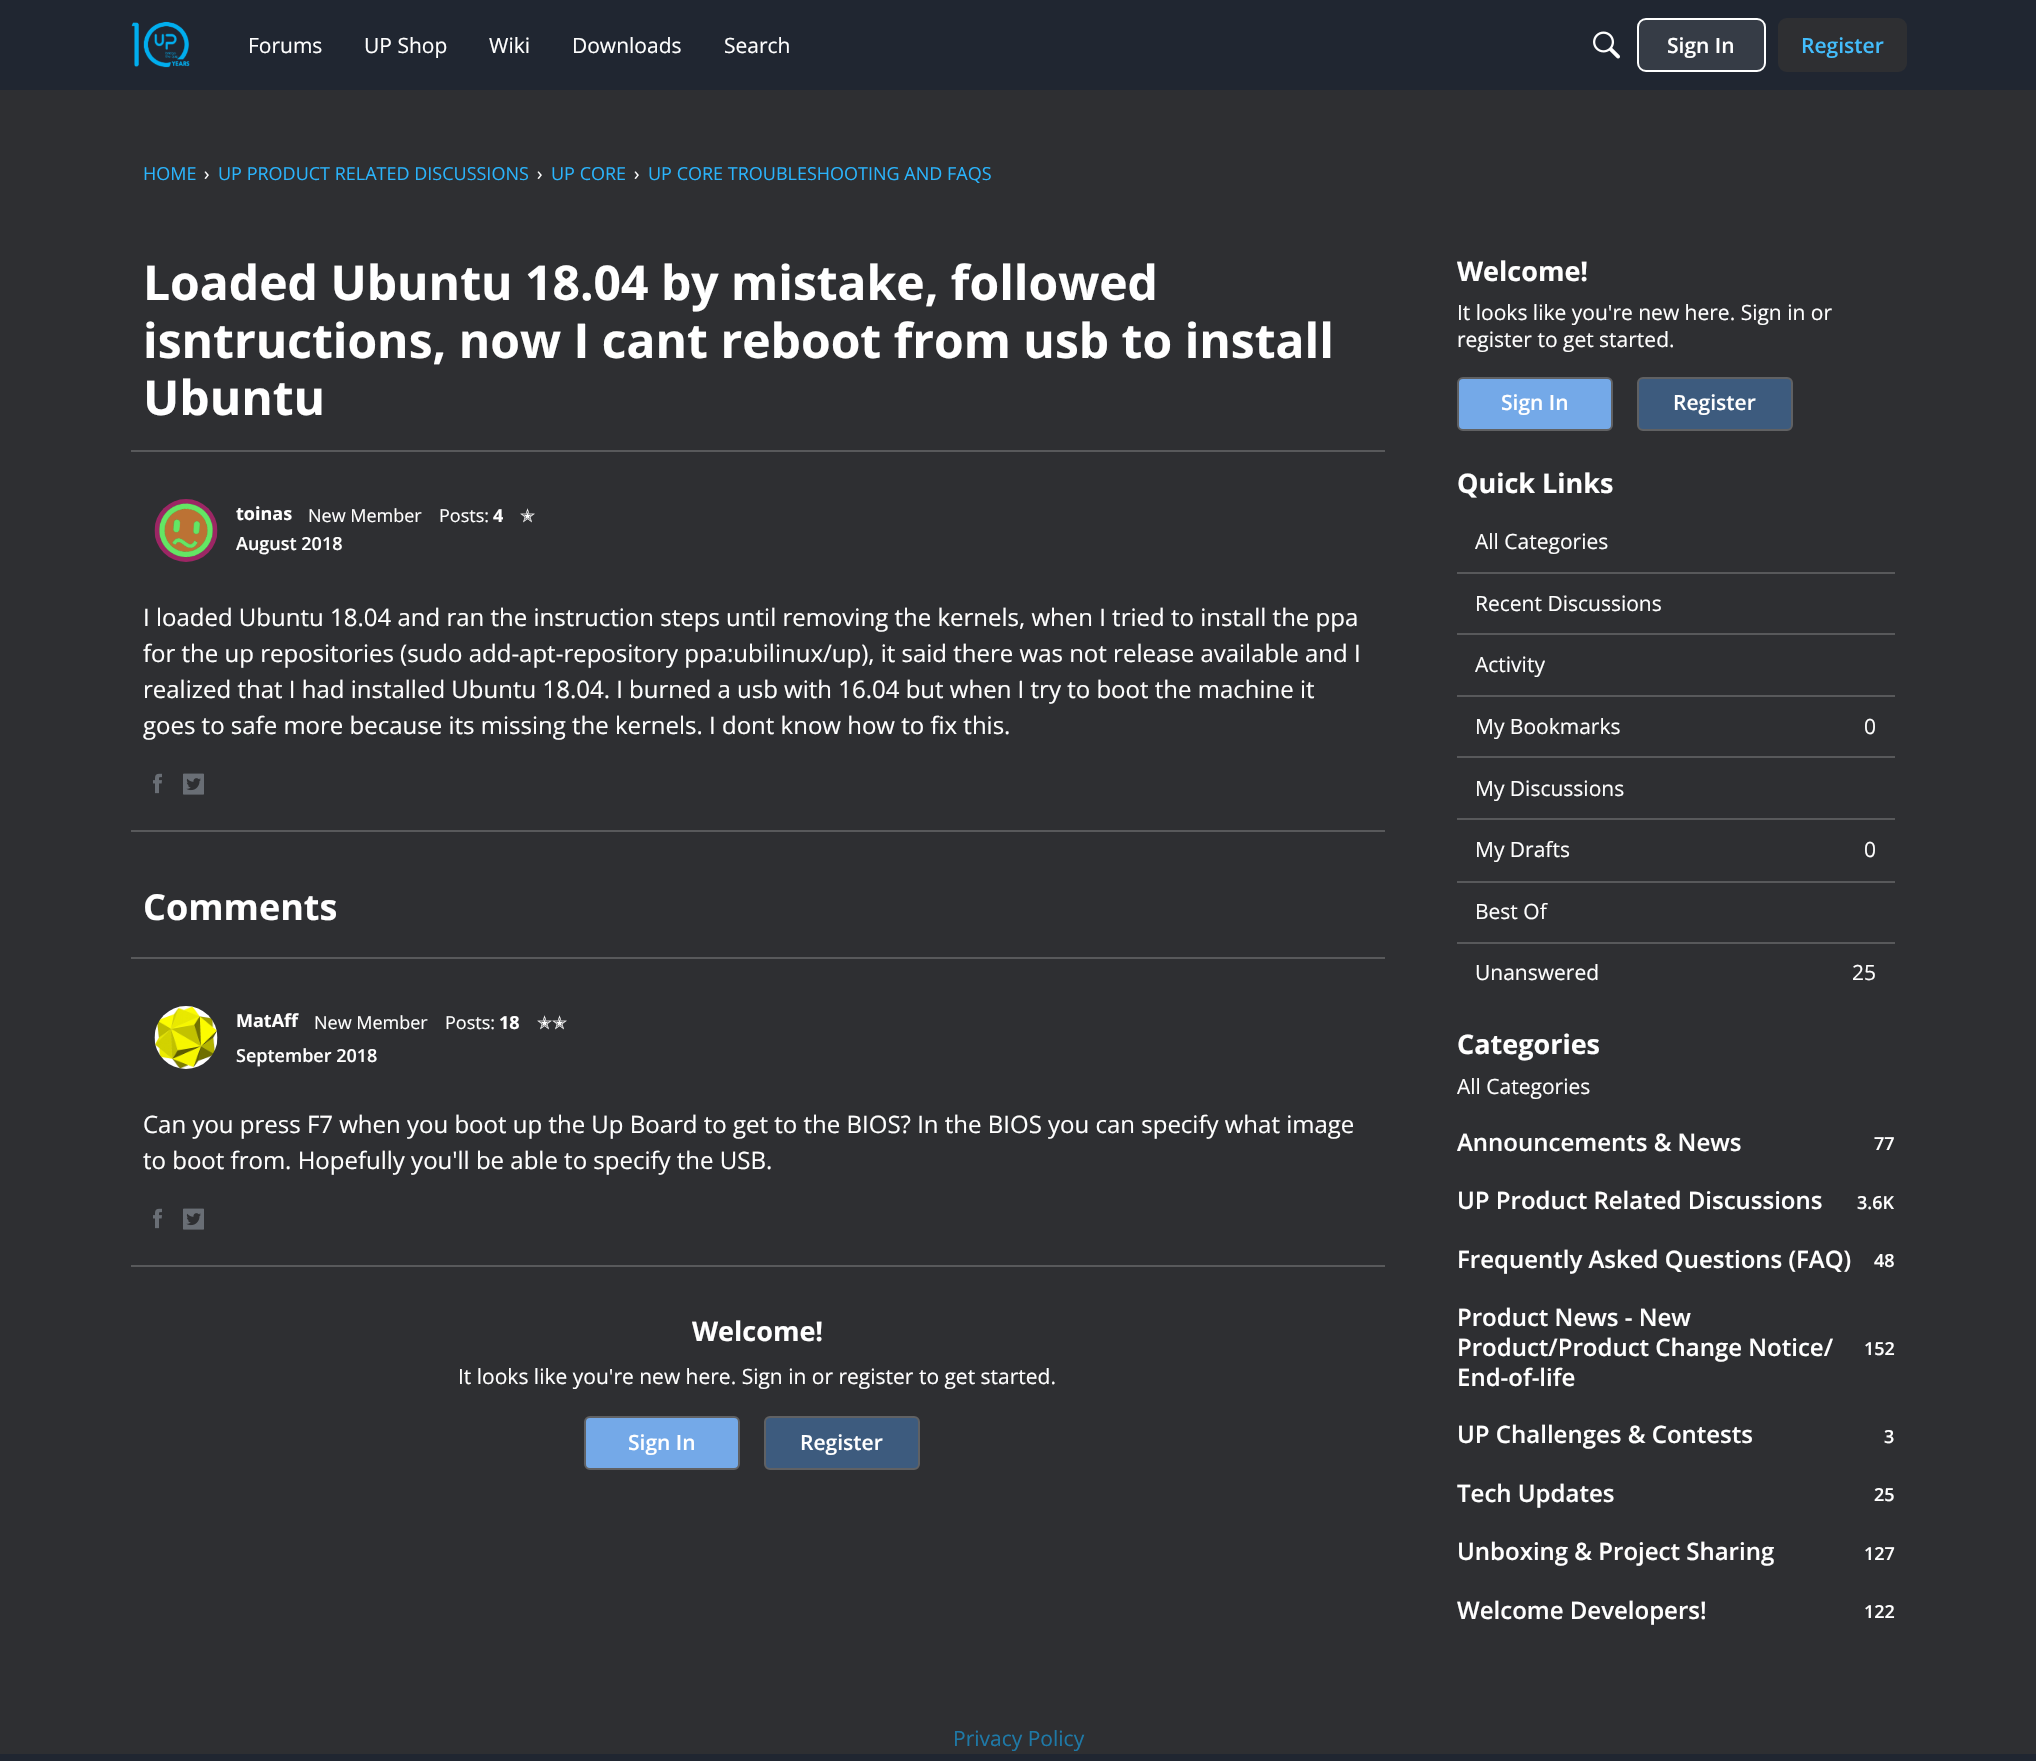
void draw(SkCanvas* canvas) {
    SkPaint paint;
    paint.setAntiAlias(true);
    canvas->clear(0xFF2E2F32);
    paint.setColor(0xFF202631);
    canvas->drawRect(SkRect::MakeXYWH(0, 0, 2036, 90), paint);
    canvas->drawImageRect(SkImages::DeferredFromEncodedData(SkData::MakeFromFileName("img1.png")), SkRect::MakeXYWH(131, 21, 59, 47), SkSamplingOptions());
    SkFont font1(fontMgr->matchFamilyStyle("Open Sans", SkFontStyle::Normal()), 21);
    font1.setSubpixel(true);
    paint.setColor(0xFFFFFFFF);
    canvas->drawString("Forums", 248, 53, font1, paint);
    canvas->drawString("UP Shop", 364, 53, font1, paint);
    canvas->drawString("Wiki", 489, 53, font1, paint);
    canvas->drawString("Downloads", 572, 53, font1, paint);
    canvas->drawString("Search", 724, 53, font1, paint);
    canvas->drawImageRect(SkImages::DeferredFromEncodedData(SkData::MakeFromFileName("img2.png")), SkRect::MakeXYWH(1593, 31, 27, 28), SkSamplingOptions());
    paint.setColor(0xFF363C46);
    canvas->drawRoundRect(SkRect::MakeXYWH(1638, 19, 127, 52), 8, 8, paint);
    paint.setStyle(SkPaint::kStroke_Style);
    paint.setStrokeWidth(2);
    paint.setColor(0xFFFFFFFF);
    canvas->drawRoundRect(SkRect::MakeXYWH(1638, 19, 127, 52), 8, 8, paint);
    SkFont font2(fontMgr->matchFamilyStyle("Open Sans", SkFontStyle(600, SkFontStyle::kNormal_Width, SkFontStyle::kUpright_Slant)), 21);
    font2.setSubpixel(true);
    paint.setStyle(SkPaint::kFill_Style);
    canvas->drawString("Sign In", 1667, 53, font2, paint);
    paint.setColor(0xFF2E2F32);
    canvas->drawRoundRect(SkRect::MakeXYWH(1779, 19, 127, 52), 8, 8, paint);
    paint.setStyle(SkPaint::kStroke_Style);
    canvas->drawRoundRect(SkRect::MakeXYWH(1779, 19, 127, 52), 8, 8, paint);
    paint.setStyle(SkPaint::kFill_Style);
    paint.setColor(0xFF43BDFC);
    canvas->drawString("Register", 1801, 53, font2, paint);
    SkFont font3(fontMgr->matchFamilyStyle("Open Sans", SkFontStyle::Normal()), 18);
    font3.setSubpixel(true);
    paint.setColor(0xFF2AB4FC);
    canvas->drawString("HOME", 143, 180, font3, paint);
    paint.setColor(0xFFFFFFFF);
    canvas->drawString("›", 204, 180, font3, paint);
    paint.setColor(0xFF2AB4FC);
    canvas->drawString("UP PRODUCT RELATED DISCUSSIONS", 218, 180, font3, paint);
    paint.setColor(0xFFFFFFFF);
    canvas->drawString("›", 537, 180, font3, paint);
    paint.setColor(0xFF2AB4FC);
    canvas->drawString("UP CORE", 551, 180, font3, paint);
    paint.setColor(0xFFFFFFFF);
    canvas->drawString("›", 634, 180, font3, paint);
    paint.setColor(0xFF2AB4FC);
    canvas->drawString("UP CORE TROUBLESHOOTING AND FAQS", 648, 180, font3, paint);
    SkFont font4(fontMgr->matchFamilyStyle("Open Sans", SkFontStyle::Bold()), 48);
    font4.setSubpixel(true);
    paint.setColor(0xFFFFFFFF);
    canvas->drawString("Loaded Ubuntu 18.04 by mistake, followed", 143, 300, font4, paint);
    canvas->drawString("isntructions, now I cant reboot from usb to install", 143, 358, font4, paint);
    canvas->drawString("Ubuntu", 143, 415, font4, paint);
    paint.setColor(0xFF58595B);
    canvas->drawRect(SkRect::MakeXYWH(131, 450, 1254, 2), paint);
    canvas->drawImageRect(SkImages::DeferredFromEncodedData(SkData::MakeFromFileName("img3.png")), SkRect::MakeXYWH(154, 499, 64, 63), SkSamplingOptions());
    SkFont font5(fontMgr->matchFamilyStyle("Open Sans", SkFontStyle::Bold()), 18);
    font5.setSubpixel(true);
    paint.setColor(0xFFFFFFFF);
    canvas->drawString("toinas", 236, 520, font5, paint);
    canvas->drawString("New Member", 308, 522, font3, paint);
    canvas->drawString("Posts:", 439, 522, font3, paint);
    canvas->drawString("4", 493, 522, font5, paint);
    SkFont font6(fontMgr->matchFamilyStyle("DejaVu Sans", SkFontStyle::Normal()), 18);
    font6.setSubpixel(true);
    canvas->drawString("✭", 520, 522, font6, paint);
    SkFont font7(fontMgr->matchFamilyStyle("Open Sans", SkFontStyle(600, SkFontStyle::kNormal_Width, SkFontStyle::kUpright_Slant)), 18);
    font7.setSubpixel(true);
    canvas->drawString("August 2018", 236, 550, font7, paint);
    SkFont font8(fontMgr->matchFamilyStyle("Open Sans", SkFontStyle::Normal()), 24);
    font8.setSubpixel(true);
    canvas->drawString("I loaded Ubuntu 18.04 and ran the instruction steps until removing the kernels, when I tried to install the ppa", 143, 626, font8, paint);
    canvas->drawString("for the up repositories (sudo add-apt-repository ppa:ubilinux/up), it said there was not release available and I", 143, 662, font8, paint);
    canvas->drawString("realized that I had installed Ubuntu 18.04. I burned a usb with 16.04 but when I try to boot the machine it", 143, 698, font8, paint);
    canvas->drawString("goes to safe more because its missing the kernels. I dont know how to fix this.", 143, 734, font8, paint);
    canvas->drawImageRect(SkImages::DeferredFromEncodedData(SkData::MakeFromFileName("img4.png")), SkRect::MakeXYWH(153, 773, 9, 21), SkSamplingOptions());
    canvas->drawImageRect(SkImages::DeferredFromEncodedData(SkData::MakeFromFileName("img5.png")), SkRect::MakeXYWH(183, 773, 21, 22), SkSamplingOptions());
    paint.setColor(0xFF58595B);
    canvas->drawRect(SkRect::MakeXYWH(131, 830, 1254, 2), paint);
    SkFont font9(fontMgr->matchFamilyStyle("Open Sans", SkFontStyle::Bold()), 36);
    font9.setSubpixel(true);
    paint.setColor(0xFFFFFFFF);
    canvas->drawString("Comments", 143, 920, font9, paint);
    paint.setColor(0xFF58595B);
    canvas->drawRect(SkRect::MakeXYWH(131, 957, 1254, 2), paint);
    canvas->drawImageRect(SkImages::DeferredFromEncodedData(SkData::MakeFromFileName("img6.png")), SkRect::MakeXYWH(154, 1006, 64, 63), SkSamplingOptions());
    paint.setColor(0xFFFFFFFF);
    canvas->drawString("MatAff", 236, 1027, font5, paint);
    canvas->drawString("New Member", 314, 1029, font3, paint);
    canvas->drawString("Posts:", 445, 1029, font3, paint);
    canvas->drawString("18", 499, 1029, font5, paint);
    canvas->drawString("✭✭", 537, 1029, font6, paint);
    canvas->drawString("September 2018", 236, 1062, font7, paint);
    canvas->drawString("Can you press F7 when you boot up the Up Board to get to the BIOS? In the BIOS you can specify what image", 143, 1133, font8, paint);
    canvas->drawString("to boot from. Hopefully you'll be able to specify the USB.", 143, 1169, font8, paint);
    canvas->drawImageRect(SkImages::DeferredFromEncodedData(SkData::MakeFromFileName("img4.png")), SkRect::MakeXYWH(153, 1208, 9, 21), SkSamplingOptions());
    canvas->drawImageRect(SkImages::DeferredFromEncodedData(SkData::MakeFromFileName("img5.png")), SkRect::MakeXYWH(183, 1208, 21, 22), SkSamplingOptions());
    paint.setColor(0xFF58595B);
    canvas->drawRect(SkRect::MakeXYWH(131, 1265, 1254, 2), paint);
    SkFont font10(fontMgr->matchFamilyStyle("Open Sans", SkFontStyle::Bold()), 27);
    font10.setSubpixel(true);
    paint.setColor(0xFFFFFFFF);
    canvas->drawString("Welcome!", 692, 1341, font10, paint);
    canvas->drawString("It looks like you're new here. Sign in or register to get started.", 458, 1384, font1, paint);
    paint.setColor(0xFF74A9E8);
    canvas->drawRoundRect(SkRect::MakeXYWH(585, 1417, 154, 52), 5, 5, paint);
    paint.setStyle(SkPaint::kStroke_Style);
    paint.setColor(0xFF606163);
    canvas->drawRoundRect(SkRect::MakeXYWH(585, 1417, 154, 52), 5, 5, paint);
    paint.setStyle(SkPaint::kFill_Style);
    paint.setColor(0xFFFFFFFF);
    canvas->drawString("Sign In", 628, 1450, font2, paint);
    paint.setColor(0xFF3D5B7E);
    canvas->drawRoundRect(SkRect::MakeXYWH(765, 1417, 154, 52), 5, 5, paint);
    paint.setStyle(SkPaint::kStroke_Style);
    paint.setColor(0xFF606163);
    canvas->drawRoundRect(SkRect::MakeXYWH(765, 1417, 154, 52), 5, 5, paint);
    paint.setStyle(SkPaint::kFill_Style);
    paint.setColor(0xFFFFFFFF);
    canvas->drawString("Register", 800, 1450, font2, paint);
    canvas->drawString("Welcome!", 1457, 281, font10, paint);
    canvas->drawString("It looks like you're new here. Sign in or", 1457, 320, font1, paint);
    canvas->drawString("register to get started.", 1457, 347, font1, paint);
    paint.setColor(0xFF74A9E8);
    canvas->drawRoundRect(SkRect::MakeXYWH(1458, 378, 154, 52), 5, 5, paint);
    paint.setStyle(SkPaint::kStroke_Style);
    paint.setColor(0xFF606163);
    canvas->drawRoundRect(SkRect::MakeXYWH(1458, 378, 154, 52), 5, 5, paint);
    paint.setStyle(SkPaint::kFill_Style);
    paint.setColor(0xFFFFFFFF);
    canvas->drawString("Sign In", 1501, 410, font2, paint);
    paint.setColor(0xFF3D5B7E);
    canvas->drawRoundRect(SkRect::MakeXYWH(1638, 378, 154, 52), 5, 5, paint);
    paint.setStyle(SkPaint::kStroke_Style);
    paint.setColor(0xFF606163);
    canvas->drawRoundRect(SkRect::MakeXYWH(1638, 378, 154, 52), 5, 5, paint);
    paint.setStyle(SkPaint::kFill_Style);
    paint.setColor(0xFFFFFFFF);
    canvas->drawString("Register", 1673, 410, font2, paint);
    canvas->drawString("Quick Links", 1457, 493, font10, paint);
    paint.setColor(0xFF58595B);
    canvas->drawRect(SkRect::MakeXYWH(1457, 572, 438, 2), paint);
    paint.setColor(0xFFFFFFFF);
    canvas->drawString("All Categories", 1475, 549, font1, paint);
    paint.setColor(0xFF58595B);
    canvas->drawRect(SkRect::MakeXYWH(1457, 633, 438, 2), paint);
    paint.setColor(0xFFFFFFFF);
    canvas->drawString("Recent Discussions", 1475, 611, font1, paint);
    paint.setColor(0xFF58595B);
    canvas->drawRect(SkRect::MakeXYWH(1457, 695, 438, 2), paint);
    paint.setColor(0xFFFFFFFF);
    canvas->drawString("Activity", 1475, 672, font1, paint);
    paint.setColor(0xFF58595B);
    canvas->drawRect(SkRect::MakeXYWH(1457, 756, 438, 2), paint);
    paint.setColor(0xFFFFFFFF);
    canvas->drawString("My Bookmarks", 1475, 734, font1, paint);
    canvas->drawString("0", 1864, 734, font1, paint);
    paint.setColor(0xFF58595B);
    canvas->drawRect(SkRect::MakeXYWH(1457, 818, 438, 2), paint);
    paint.setColor(0xFFFFFFFF);
    canvas->drawString("My Discussions", 1475, 796, font1, paint);
    paint.setColor(0xFF58595B);
    canvas->drawRect(SkRect::MakeXYWH(1457, 881, 438, 2), paint);
    paint.setColor(0xFFFFFFFF);
    canvas->drawString("My Drafts", 1475, 857, font1, paint);
    canvas->drawString("0", 1864, 857, font1, paint);
    paint.setColor(0xFF58595B);
    canvas->drawRect(SkRect::MakeXYWH(1457, 942, 438, 2), paint);
    paint.setColor(0xFFFFFFFF);
    canvas->drawString("Best Of", 1475, 919, font1, paint);
    canvas->drawString("Unanswered", 1475, 980, font1, paint);
    canvas->drawString("25", 1852, 980, font1, paint);
    canvas->drawString("Categories", 1457, 1054, font10, paint);
    canvas->drawString("All Categories", 1457, 1094, font1, paint);
    SkFont font11(fontMgr->matchFamilyStyle("Open Sans", SkFontStyle(600, SkFontStyle::kNormal_Width, SkFontStyle::kUpright_Slant)), 24);
    font11.setSubpixel(true);
    canvas->drawString("Announcements & News", 1457, 1151, font11, paint);
    canvas->drawString("77", 1874, 1150, font7, paint);
    canvas->drawString("UP Product Related Discussions", 1457, 1209, font11, paint);
    canvas->drawString("3.6K", 1857, 1209, font7, paint);
    canvas->drawString("Frequently Asked Questions (FAQ)", 1457, 1268, font11, paint);
    canvas->drawString("48", 1874, 1267, font7, paint);
    canvas->drawString("Product News - New", 1457, 1326, font11, paint);
    canvas->drawString("Product/Product Change Notice/", 1457, 1356, font11, paint);
    canvas->drawString("152", 1864, 1355, font7, paint);
    canvas->drawString("End-of-life", 1457, 1386, font11, paint);
    canvas->drawString("UP Challenges & Contests", 1457, 1443, font11, paint);
    canvas->drawString("3", 1884, 1443, font7, paint);
    canvas->drawString("Tech Updates", 1457, 1502, font11, paint);
    canvas->drawString("25", 1874, 1501, font7, paint);
    canvas->drawString("Unboxing & Project Sharing", 1457, 1560, font11, paint);
    canvas->drawString("127", 1864, 1560, font7, paint);
    canvas->drawString("Welcome Developers!", 1457, 1619, font11, paint);
    canvas->drawString("122", 1864, 1618, font7, paint);
    paint.setColor(0xFF1E79A7);
    canvas->drawString("Privacy Policy", 953, 1746, font1, paint);
    paint.setColor(0xFF202631);
    canvas->drawRect(SkRect::MakeXYWH(0, 1754, 2036, 7), paint);
}
